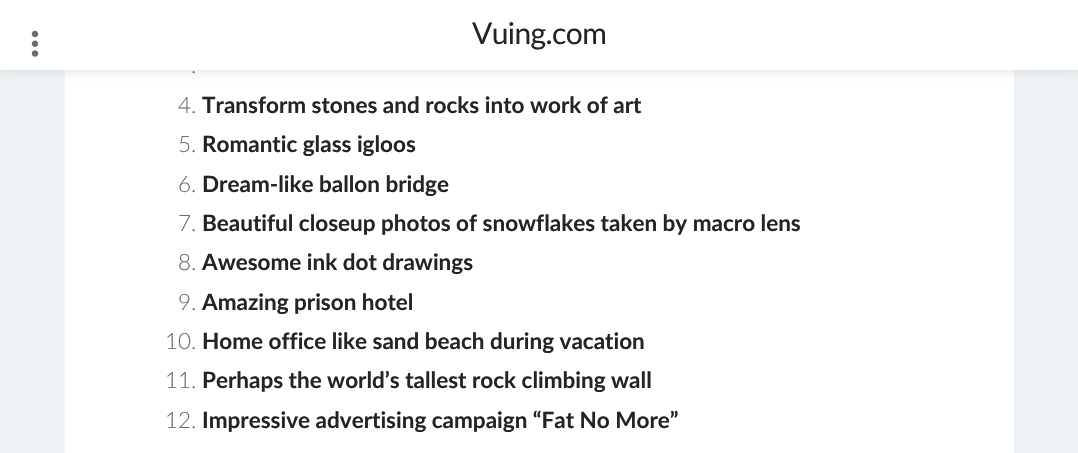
void draw(SkCanvas* canvas) {
    SkPaint paint;
    paint.setAntiAlias(true);
    auto spacedText = [&](const char* s, float x, float y, const SkFont& font, const SkPaint& ink, float letter, float word) {
        std::vector<SkGlyphID> glyphs(font.countText(s, strlen(s), SkTextEncoding::kUTF8));
        std::vector<float> xs(glyphs.size());
        font.textToGlyphs(s, strlen(s), SkTextEncoding::kUTF8, glyphs);
        font.getXPos(glyphs, xs, x);
        float extra = 0;
        for (size_t i = 0; i < glyphs.size(); i++) {
            xs[i] += extra;
            extra += letter + word * (glyphs[i] == font.unicharToGlyph(' '));
        }
        canvas->drawTextBlob(SkTextBlob::MakeFromPosHGlyphs(glyphs, xs, y, font), 0, 0, ink);
    };
    canvas->clear(0xFFEEF3F5);
    paint.setColor(0xFFFFFFFF);
    canvas->drawRect(SkRect::MakeXYWH(65, 70, 949, 383), paint);
    paint.setColor(0x26222527);
    paint.setMaskFilter(SkMaskFilter::MakeBlur(kNormal_SkBlurStyle, 6));
    canvas->drawRect(SkRect::MakeXYWH(0, 0, 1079, 70), paint);
    paint.setMaskFilter(nullptr);
    paint.setColor(0xFFFFFFFF);
    canvas->drawRect(SkRect::MakeXYWH(0, 0, 1078, 70), paint);
    canvas->drawImageRect(SkImages::DeferredFromEncodedData(SkData::MakeFromFileName("img1.png")), SkRect::MakeXYWH(31, 30, 8, 27), SkSamplingOptions());
    SkFont font1(fontMgr->matchFamilyStyle("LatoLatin", SkFontStyle::Normal()), 30);
    font1.setSubpixel(true);
    paint.setColor(0xFF222527);
    spacedText("Vuing.com", 472, 44, font1, paint, -0.6f, 0);
    SkFont font2(fontMgr->matchFamilyStyle("LatoLatin", SkFontStyle(300, SkFontStyle::kNormal_Width, SkFontStyle::kUpright_Slant)), 22.5f);
    font2.setSubpixel(true);
    paint.setColor(0xFF676D70);
    canvas->drawString(".", 191, 73, font2, paint);
    canvas->drawString("4.", 178, 113, font2, paint);
    SkFont font3(fontMgr->matchFamilyStyle("LatoLatin", SkFontStyle::Bold()), 22.5f);
    font3.setSubpixel(true);
    paint.setColor(0xFF222527);
    canvas->drawString("Transform stones and rocks into work of art", 202, 113, font3, paint);
    paint.setColor(0xFF676D70);
    canvas->drawString("5.", 178, 152, font2, paint);
    paint.setColor(0xFF222527);
    canvas->drawString("Romantic glass igloos", 202, 152, font3, paint);
    paint.setColor(0xFF676D70);
    canvas->drawString("6.", 178, 192, font2, paint);
    paint.setColor(0xFF222527);
    canvas->drawString("Dream-like ballon bridge", 202, 192, font3, paint);
    paint.setColor(0xFF676D70);
    canvas->drawString("7.", 178, 231, font2, paint);
    paint.setColor(0xFF222527);
    canvas->drawString("Beautiful closeup photos of snowflakes taken by macro lens", 202, 231, font3, paint);
    paint.setColor(0xFF676D70);
    canvas->drawString("8.", 178, 270, font2, paint);
    paint.setColor(0xFF222527);
    canvas->drawString("Awesome ink dot drawings", 202, 270, font3, paint);
    paint.setColor(0xFF676D70);
    canvas->drawString("9.", 178, 310, font2, paint);
    paint.setColor(0xFF222527);
    canvas->drawString("Amazing prison hotel", 202, 310, font3, paint);
    paint.setColor(0xFF676D70);
    canvas->drawString("10.", 165, 349, font2, paint);
    paint.setColor(0xFF222527);
    canvas->drawString("Home office like sand beach during vacation", 202, 349, font3, paint);
    paint.setColor(0xFF676D70);
    canvas->drawString("11.", 165, 388, font2, paint);
    paint.setColor(0xFF222527);
    canvas->drawString("Perhaps the world’s tallest rock climbing wall", 202, 388, font3, paint);
    paint.setColor(0xFF676D70);
    canvas->drawString("12.", 165, 428, font2, paint);
    paint.setColor(0xFF222527);
    canvas->drawString("Impressive advertising campaign “Fat No More”", 202, 428, font3, paint);
}
